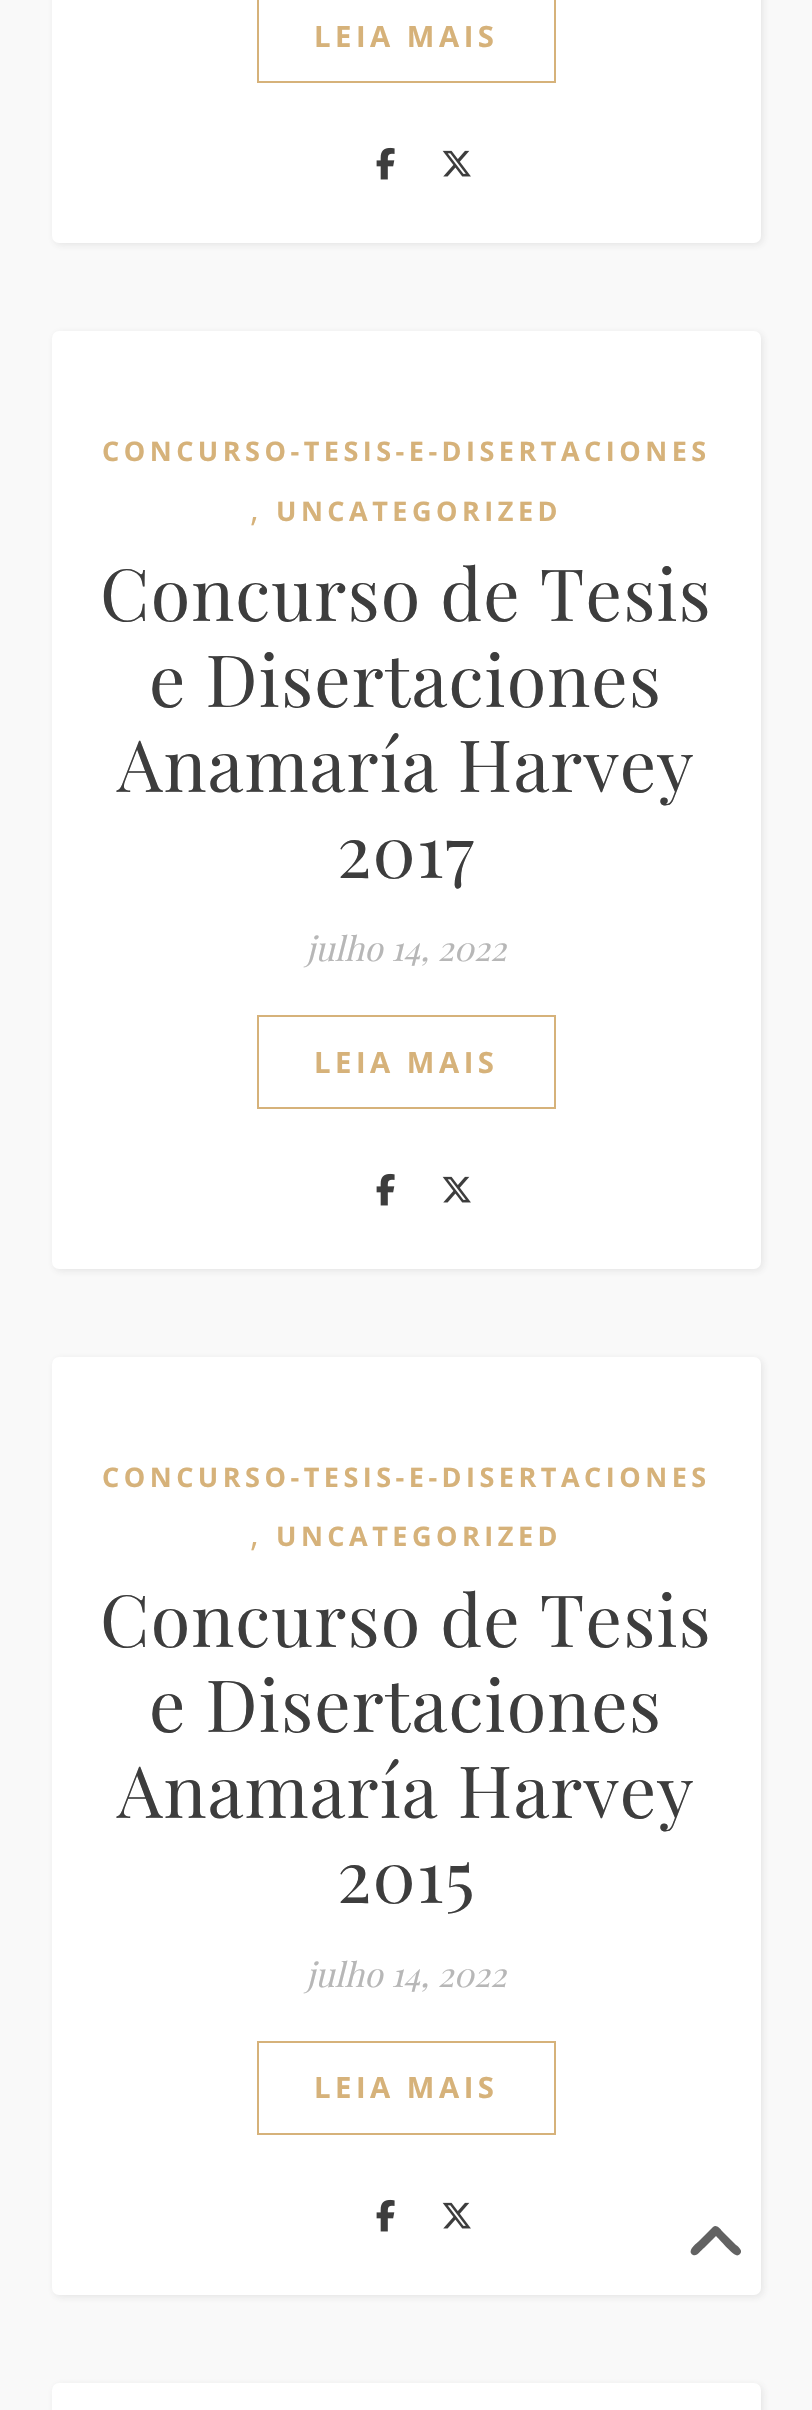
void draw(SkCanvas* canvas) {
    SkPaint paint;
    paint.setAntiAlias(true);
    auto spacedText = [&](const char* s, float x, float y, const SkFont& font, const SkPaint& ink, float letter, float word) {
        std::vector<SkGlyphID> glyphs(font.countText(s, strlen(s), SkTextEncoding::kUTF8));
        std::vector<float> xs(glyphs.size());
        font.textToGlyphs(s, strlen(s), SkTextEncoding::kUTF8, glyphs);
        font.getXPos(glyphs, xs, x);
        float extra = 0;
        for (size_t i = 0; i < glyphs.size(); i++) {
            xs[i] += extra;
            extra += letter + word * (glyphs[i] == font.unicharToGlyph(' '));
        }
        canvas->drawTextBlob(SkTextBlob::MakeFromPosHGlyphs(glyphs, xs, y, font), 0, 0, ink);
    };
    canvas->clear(0xFFF9F9F9);
    paint.setColor(0x1A3B3B3B);
    paint.setMaskFilter(SkMaskFilter::MakeBlur(kNormal_SkBlurStyle, 3.5f));
    canvas->drawRoundRect(SkRect::MakeXYWH(54, -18, 709, 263), 7, 7, paint);
    paint.setMaskFilter(nullptr);
    paint.setColor(0xFFFFFFFF);
    canvas->drawRoundRect(SkRect::MakeXYWH(52, -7, 709, 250), 7, 7, paint);
    paint.setStyle(SkPaint::kStroke_Style);
    paint.setStrokeWidth(2);
    paint.setColor(0xFFD6B27A);
    canvas->drawRect(SkRect::MakeXYWH(258, -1, 297, 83), paint);
    SkFont font1(fontMgr->matchFamilyStyle("Open Sans", SkFontStyle::Bold()), 29.25f);
    font1.setSubpixel(true);
    paint.setStyle(SkPaint::kFill_Style);
    spacedText("LEIA MAIS", 314, 47, font1, paint, 4.5f, 0);
    canvas->drawImageRect(SkImages::DeferredFromEncodedData(SkData::MakeFromFileName("img1.png")), SkRect::MakeXYWH(376, 147, 19, 33), SkSamplingOptions());
    canvas->drawImageRect(SkImages::DeferredFromEncodedData(SkData::MakeFromFileName("img2.png")), SkRect::MakeXYWH(442, 150, 29, 27), SkSamplingOptions());
    paint.setColor(0x1A3B3B3B);
    paint.setMaskFilter(SkMaskFilter::MakeBlur(kNormal_SkBlurStyle, 3.5f));
    canvas->drawRoundRect(SkRect::MakeXYWH(54, 333, 709, 938), 7, 7, paint);
    paint.setMaskFilter(nullptr);
    paint.setColor(0xFFFFFFFF);
    canvas->drawRoundRect(SkRect::MakeXYWH(52, 331, 709, 938), 7, 7, paint);
    SkFont font2(fontMgr->matchFamilyStyle("Open Sans", SkFontStyle::Bold()), 27);
    font2.setSubpixel(true);
    paint.setColor(0xFFD6B27A);
    spacedText("CONCURSO-TESIS-E-DISERTACIONES", 102, 461, font2, paint, 4.5f, 0);
    SkFont font3(fontMgr->matchFamilyStyle("Open Sans", SkFontStyle::Normal()), 33.75f);
    font3.setSubpixel(true);
    canvas->drawString(",", 250, 521, font3, paint);
    spacedText("UNCATEGORIZED", 276, 521, font2, paint, 4.5f, 0);
    SkFont font4(fontMgr->matchFamilyStyle("Playfair Display", SkFontStyle::Normal()), 72);
    font4.setSubpixel(true);
    paint.setColor(0xFF3D3D3D);
    spacedText("Concurso de Tesis", 100, 621, font4, paint, 1.1f, 0);
    spacedText("e Disertaciones", 149, 707, font4, paint, 1.1f, 0);
    spacedText("Anamaría Harvey", 117, 792, font4, paint, 1.1f, 0);
    spacedText("2017", 337, 878, font4, paint, 1.1f, 0);
    SkFont font5(fontMgr->matchFamilyStyle("Playfair Display", SkFontStyle::Italic()), 33.75f);
    font5.setSubpixel(true);
    paint.setColor(0xFFB7B7B7);
    canvas->drawString("julho 14, 2022", 306, 961, font5, paint);
    paint.setStyle(SkPaint::kStroke_Style);
    paint.setColor(0xFFD6B27A);
    canvas->drawRect(SkRect::MakeXYWH(258, 1016, 297, 92), paint);
    paint.setStyle(SkPaint::kFill_Style);
    spacedText("LEIA MAIS", 314, 1073, font1, paint, 4.5f, 0);
    canvas->drawImageRect(SkImages::DeferredFromEncodedData(SkData::MakeFromFileName("img1.png")), SkRect::MakeXYWH(376, 1173, 19, 33), SkSamplingOptions());
    canvas->drawImageRect(SkImages::DeferredFromEncodedData(SkData::MakeFromFileName("img2.png")), SkRect::MakeXYWH(442, 1176, 29, 27), SkSamplingOptions());
    paint.setColor(0x1A3B3B3B);
    paint.setMaskFilter(SkMaskFilter::MakeBlur(kNormal_SkBlurStyle, 3.5f));
    canvas->drawRoundRect(SkRect::MakeXYWH(54, 1359, 709, 938), 7, 7, paint);
    paint.setMaskFilter(nullptr);
    paint.setColor(0xFFFFFFFF);
    canvas->drawRoundRect(SkRect::MakeXYWH(52, 1357, 709, 938), 7, 7, paint);
    paint.setColor(0xFFD6B27A);
    spacedText("CONCURSO-TESIS-E-DISERTACIONES", 102, 1487, font2, paint, 4.5f, 0);
    canvas->drawString(",", 250, 1546, font3, paint);
    spacedText("UNCATEGORIZED", 276, 1546, font2, paint, 4.5f, 0);
    paint.setColor(0xFF3D3D3D);
    spacedText("Concurso de Tesis", 100, 1647, font4, paint, 1.1f, 0);
    spacedText("e Disertaciones", 149, 1732, font4, paint, 1.1f, 0);
    spacedText("Anamaría Harvey", 117, 1818, font4, paint, 1.1f, 0);
    spacedText("2015", 337, 1903, font4, paint, 1.1f, 0);
    paint.setColor(0xFFB7B7B7);
    canvas->drawString("julho 14, 2022", 306, 1987, font5, paint);
    paint.setStyle(SkPaint::kStroke_Style);
    paint.setColor(0xFFD6B27A);
    canvas->drawRect(SkRect::MakeXYWH(258, 2042, 297, 92), paint);
    paint.setStyle(SkPaint::kFill_Style);
    spacedText("LEIA MAIS", 314, 2098, font1, paint, 4.5f, 0);
    canvas->drawImageRect(SkImages::DeferredFromEncodedData(SkData::MakeFromFileName("img1.png")), SkRect::MakeXYWH(376, 2199, 19, 33), SkSamplingOptions());
    canvas->drawImageRect(SkImages::DeferredFromEncodedData(SkData::MakeFromFileName("img2.png")), SkRect::MakeXYWH(442, 2202, 29, 27), SkSamplingOptions());
    paint.setColor(0x1A3B3B3B);
    paint.setMaskFilter(SkMaskFilter::MakeBlur(kNormal_SkBlurStyle, 3.5f));
    canvas->drawRoundRect(SkRect::MakeXYWH(54, 2385, 709, 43), 7, 7, paint);
    paint.setMaskFilter(nullptr);
    paint.setColor(0xFFFFFFFF);
    canvas->drawRoundRect(SkRect::MakeXYWH(52, 2383, 709, 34), 7, 7, paint);
    paint.setColor(0xFF626262);
    canvas->drawPath(SkPathBuilder().moveTo(713, 2227).cubicTo(716, 2224, 720, 2228, 722, 2231).lineTo(736, 2245).cubicTo(739, 2247, 743, 2251, 740, 2254).cubicTo(739, 2255, 737, 2256, 736, 2255).cubicTo(733, 2255, 719, 2239, 716, 2236).lineTo(704, 2248).cubicTo(701, 2250, 697, 2257, 693, 2255).cubicTo(686, 2251, 697, 2243, 699, 2241).close().detach(), paint);
}
